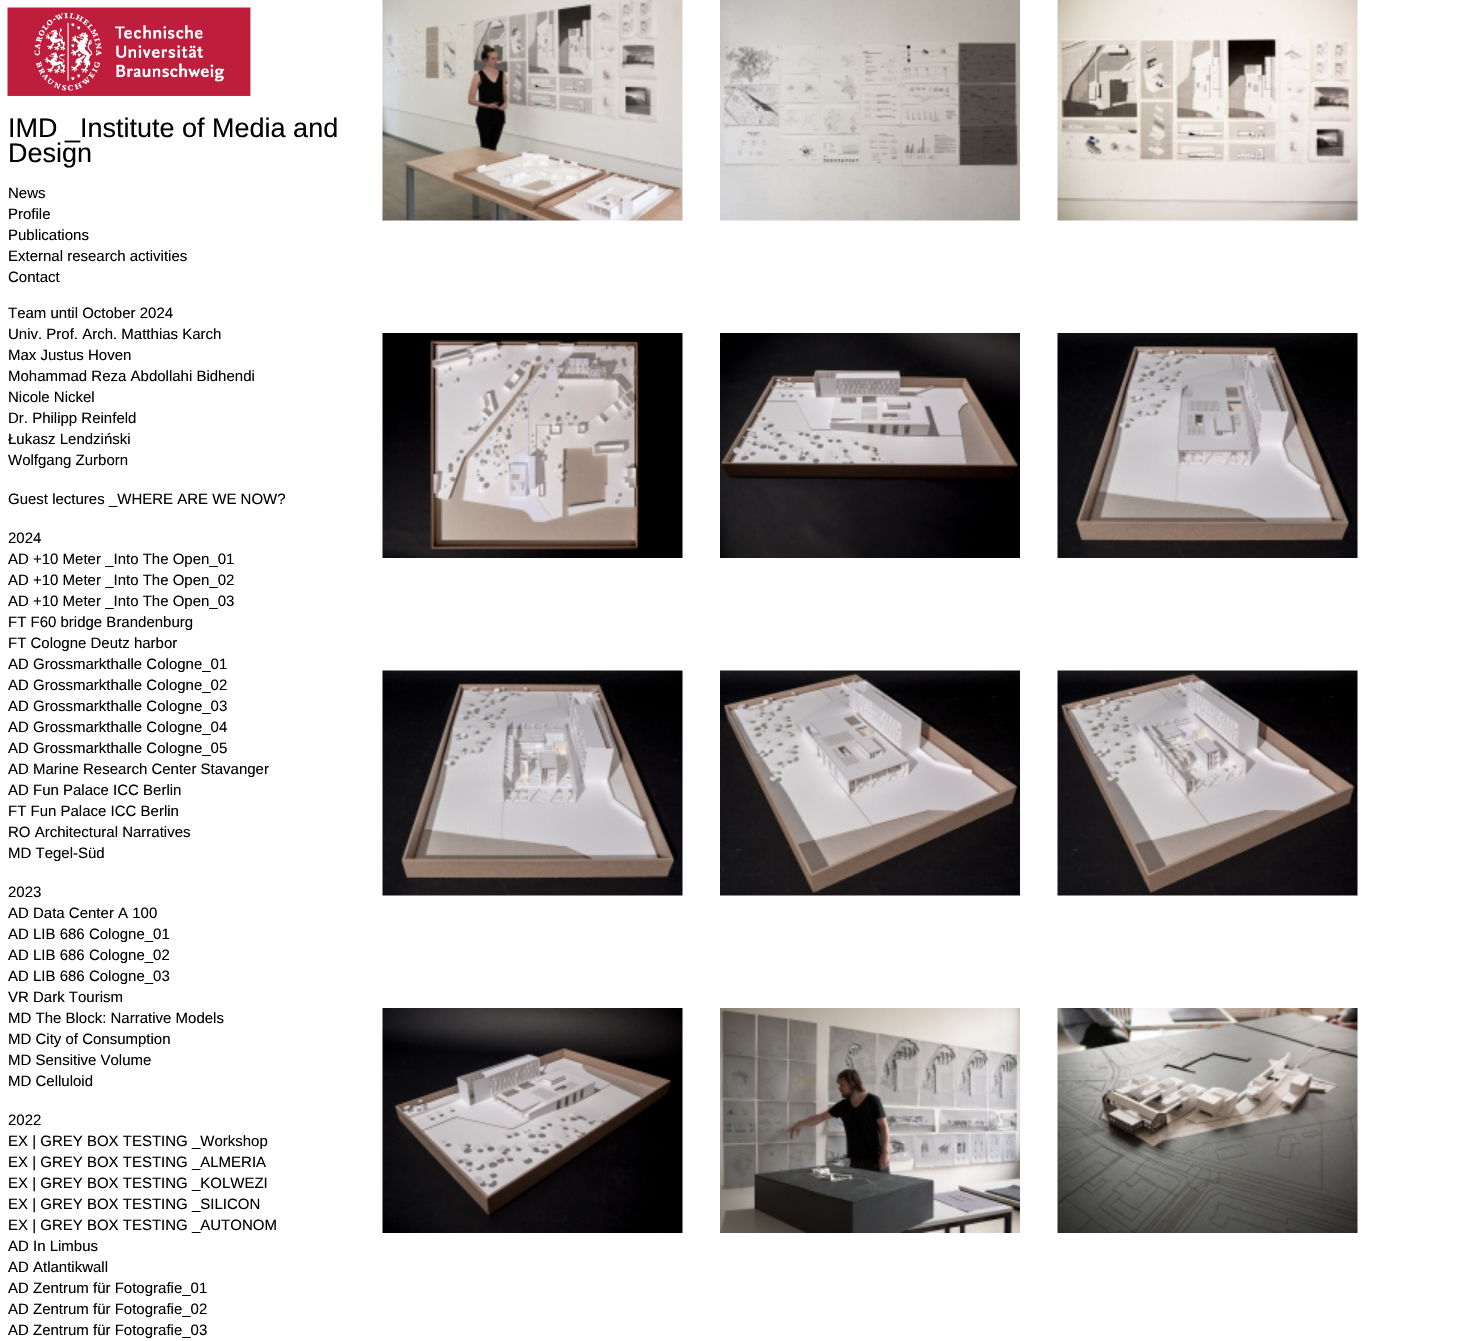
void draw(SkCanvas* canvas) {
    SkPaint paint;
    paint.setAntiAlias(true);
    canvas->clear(0xFFFFFFFF);
    canvas->drawImageRect(SkImages::DeferredFromEncodedData(SkData::MakeFromFileName("img1.png")), SkRect::MakeXYWH(7, 7, 244, 89), SkSamplingOptions());
    SkFont font1(fontMgr->matchFamilyStyle("Liberation Sans", SkFontStyle::Normal()), 27);
    font1.setSubpixel(true);
    paint.setColor(0xFF000000);
    canvas->drawString("IMD _Institute of Media and", 8, 137, font1, paint);
    canvas->drawString("Design", 8, 162, font1, paint);
    SkFont font2(fontMgr->matchFamilyStyle("Liberation Sans", SkFontStyle::Normal()), 15);
    font2.setSubpixel(true);
    canvas->drawString("News", 8, 198, font2, paint);
    canvas->drawString("Profile", 8, 219, font2, paint);
    canvas->drawString("Publications", 8, 240, font2, paint);
    canvas->drawString("External research activities", 8, 261, font2, paint);
    canvas->drawString("Contact", 8, 282, font2, paint);
    canvas->drawString("Team until October 2024", 8, 318, font2, paint);
    canvas->drawString("Univ. Prof. Arch. Matthias Karch", 8, 339, font2, paint);
    canvas->drawString("Max Justus Hoven", 8, 360, font2, paint);
    canvas->drawString("Mohammad Reza Abdollahi Bidhendi", 8, 381, font2, paint);
    canvas->drawString("Nicole Nickel", 8, 402, font2, paint);
    canvas->drawString("Dr. Philipp Reinfeld", 8, 423, font2, paint);
    canvas->drawString("Łukasz Lendziński", 8, 444, font2, paint);
    canvas->drawString("Wolfgang Zurborn", 8, 465, font2, paint);
    canvas->drawString("Guest lectures _WHERE ARE WE NOW?", 8, 504, font2, paint);
    canvas->drawString("2024", 8, 543, font2, paint);
    canvas->drawString("AD +10 Meter _Into The Open_01", 8, 564, font2, paint);
    canvas->drawString("AD +10 Meter _Into The Open_02", 8, 585, font2, paint);
    canvas->drawString("AD +10 Meter _Into The Open_03", 8, 606, font2, paint);
    canvas->drawString("FT F60 bridge Brandenburg", 8, 627, font2, paint);
    canvas->drawString("FT Cologne Deutz harbor", 8, 648, font2, paint);
    canvas->drawString("AD Grossmarkthalle Cologne_01", 8, 669, font2, paint);
    canvas->drawString("AD Grossmarkthalle Cologne_02", 8, 690, font2, paint);
    canvas->drawString("AD Grossmarkthalle Cologne_03", 8, 711, font2, paint);
    canvas->drawString("AD Grossmarkthalle Cologne_04", 8, 732, font2, paint);
    canvas->drawString("AD Grossmarkthalle Cologne_05", 8, 753, font2, paint);
    canvas->drawString("AD Marine Research Center Stavanger", 8, 774, font2, paint);
    canvas->drawString("AD Fun Palace ICC Berlin", 8, 795, font2, paint);
    canvas->drawString("FT Fun Palace ICC Berlin", 8, 816, font2, paint);
    canvas->drawString("RO Architectural Narratives", 8, 837, font2, paint);
    canvas->drawString("MD Tegel-Süd", 8, 858, font2, paint);
    canvas->drawString("2023", 8, 897, font2, paint);
    canvas->drawString("AD Data Center A 100", 8, 918, font2, paint);
    canvas->drawString("AD LIB 686 Cologne_01", 8, 939, font2, paint);
    canvas->drawString("AD LIB 686 Cologne_02", 8, 960, font2, paint);
    canvas->drawString("AD LIB 686 Cologne_03", 8, 981, font2, paint);
    canvas->drawString("VR Dark Tourism", 8, 1002, font2, paint);
    canvas->drawString("MD The Block: Narrative Models", 8, 1023, font2, paint);
    canvas->drawString("MD City of Consumption", 8, 1044, font2, paint);
    canvas->drawString("MD Sensitive Volume", 8, 1065, font2, paint);
    canvas->drawString("MD Celluloid", 8, 1086, font2, paint);
    canvas->drawString("2022", 8, 1125, font2, paint);
    canvas->drawString("EX | GREY BOX TESTING _Workshop", 8, 1146, font2, paint);
    canvas->drawString("EX | GREY BOX TESTING _ALMERIA", 8, 1167, font2, paint);
    canvas->drawString("EX | GREY BOX TESTING _KOLWEZI", 8, 1188, font2, paint);
    canvas->drawString("EX | GREY BOX TESTING _SILICON", 8, 1209, font2, paint);
    canvas->drawString("EX | GREY BOX TESTING _AUTONOM", 8, 1230, font2, paint);
    canvas->drawString("AD In Limbus", 8, 1251, font2, paint);
    canvas->drawString("AD Atlantikwall", 8, 1272, font2, paint);
    canvas->drawString("AD Zentrum für Fotografie_01", 8, 1293, font2, paint);
    canvas->drawString("AD Zentrum für Fotografie_02", 8, 1314, font2, paint);
    canvas->drawString("AD Zentrum für Fotografie_03", 8, 1335, font2, paint);
    canvas->drawImageRect(SkImages::DeferredFromEncodedData(SkData::MakeFromFileName("img2.png")), SkRect::MakeXYWH(382, 0, 301, 221), SkSamplingOptions());
    canvas->drawImageRect(SkImages::DeferredFromEncodedData(SkData::MakeFromFileName("img3.png")), SkRect::MakeXYWH(720, 0, 300, 221), SkSamplingOptions());
    canvas->drawImageRect(SkImages::DeferredFromEncodedData(SkData::MakeFromFileName("img4.png")), SkRect::MakeXYWH(1057, 0, 301, 221), SkSamplingOptions());
    canvas->drawImageRect(SkImages::DeferredFromEncodedData(SkData::MakeFromFileName("img5.png")), SkRect::MakeXYWH(382, 333, 301, 225), SkSamplingOptions());
    canvas->drawImageRect(SkImages::DeferredFromEncodedData(SkData::MakeFromFileName("img6.png")), SkRect::MakeXYWH(720, 333, 300, 225), SkSamplingOptions());
    canvas->drawImageRect(SkImages::DeferredFromEncodedData(SkData::MakeFromFileName("img7.png")), SkRect::MakeXYWH(1057, 333, 301, 225), SkSamplingOptions());
    canvas->drawImageRect(SkImages::DeferredFromEncodedData(SkData::MakeFromFileName("img8.png")), SkRect::MakeXYWH(382, 670, 301, 226), SkSamplingOptions());
    canvas->drawImageRect(SkImages::DeferredFromEncodedData(SkData::MakeFromFileName("img9.png")), SkRect::MakeXYWH(720, 670, 300, 226), SkSamplingOptions());
    canvas->drawImageRect(SkImages::DeferredFromEncodedData(SkData::MakeFromFileName("img10.png")), SkRect::MakeXYWH(1057, 670, 301, 226), SkSamplingOptions());
    canvas->drawImageRect(SkImages::DeferredFromEncodedData(SkData::MakeFromFileName("img11.png")), SkRect::MakeXYWH(382, 1008, 301, 225), SkSamplingOptions());
    canvas->drawImageRect(SkImages::DeferredFromEncodedData(SkData::MakeFromFileName("img12.png")), SkRect::MakeXYWH(720, 1008, 300, 225), SkSamplingOptions());
    canvas->drawImageRect(SkImages::DeferredFromEncodedData(SkData::MakeFromFileName("img13.png")), SkRect::MakeXYWH(1057, 1008, 301, 225), SkSamplingOptions());
}
